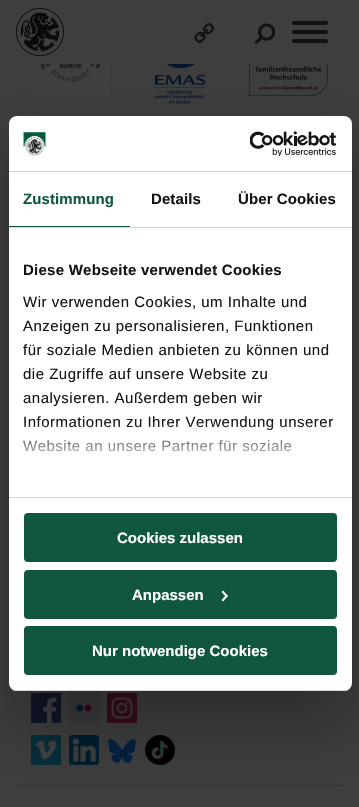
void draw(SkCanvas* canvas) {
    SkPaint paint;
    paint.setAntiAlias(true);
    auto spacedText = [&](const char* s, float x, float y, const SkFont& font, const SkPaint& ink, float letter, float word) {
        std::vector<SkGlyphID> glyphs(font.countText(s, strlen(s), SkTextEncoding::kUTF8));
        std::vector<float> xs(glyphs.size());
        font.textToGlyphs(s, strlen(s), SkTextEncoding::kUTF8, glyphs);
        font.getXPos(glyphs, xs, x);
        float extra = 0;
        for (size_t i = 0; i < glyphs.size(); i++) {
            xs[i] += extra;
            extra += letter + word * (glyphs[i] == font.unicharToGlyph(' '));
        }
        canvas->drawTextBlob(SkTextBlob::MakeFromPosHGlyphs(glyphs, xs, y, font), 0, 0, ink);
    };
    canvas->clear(0xFF3E3E3E);
    canvas->drawImageRect(SkImages::DeferredFromEncodedData(SkData::MakeFromFileName("img1.png")), SkRect::MakeXYWH(16, 8, 48, 48), SkSamplingOptions());
    canvas->drawImageRect(SkImages::DeferredFromEncodedData(SkData::MakeFromFileName("img2.png")), SkRect::MakeXYWH(194, 23, 21, 20), SkSamplingOptions());
    canvas->drawImageRect(SkImages::DeferredFromEncodedData(SkData::MakeFromFileName("img3.png")), SkRect::MakeXYWH(254, 23, 22, 21), SkSamplingOptions());
    paint.setColor(0xFF121212);
    canvas->drawRoundRect(SkRect::MakeXYWH(292, 21, 36, 4), 2, 2, paint);
    canvas->drawRoundRect(SkRect::MakeXYWH(292, 30, 36, 4), 2, 2, paint);
    canvas->drawRoundRect(SkRect::MakeXYWH(292, 39, 36, 4), 2, 2, paint);
    canvas->drawImageRect(SkImages::DeferredFromEncodedData(SkData::MakeFromFileName("img4.png")), SkRect::MakeXYWH(31, 64, 79, 32), SkSamplingOptions());
    canvas->drawImageRect(SkImages::DeferredFromEncodedData(SkData::MakeFromFileName("img5.png")), SkRect::MakeXYWH(152, 64, 55, 40), SkSamplingOptions());
    canvas->drawImageRect(SkImages::DeferredFromEncodedData(SkData::MakeFromFileName("img6.png")), SkRect::MakeXYWH(249, 64, 79, 32), SkSamplingOptions());
    canvas->drawImageRect(SkImages::DeferredFromEncodedData(SkData::MakeFromFileName("img7.png")), SkRect::MakeXYWH(31, 693, 30, 30), SkSamplingOptions());
    canvas->drawImageRect(SkImages::DeferredFromEncodedData(SkData::MakeFromFileName("img8.png")), SkRect::MakeXYWH(69, 693, 30, 30), SkSamplingOptions());
    canvas->drawImageRect(SkImages::DeferredFromEncodedData(SkData::MakeFromFileName("img9.png")), SkRect::MakeXYWH(107, 693, 30, 30), SkSamplingOptions());
    canvas->drawImageRect(SkImages::DeferredFromEncodedData(SkData::MakeFromFileName("img10.png")), SkRect::MakeXYWH(31, 735, 30, 30), SkSamplingOptions());
    canvas->drawImageRect(SkImages::DeferredFromEncodedData(SkData::MakeFromFileName("img11.png")), SkRect::MakeXYWH(69, 735, 30, 30), SkSamplingOptions());
    canvas->drawImageRect(SkImages::DeferredFromEncodedData(SkData::MakeFromFileName("img12.png")), SkRect::MakeXYWH(108, 738, 28, 25), SkSamplingOptions());
    canvas->drawImageRect(SkImages::DeferredFromEncodedData(SkData::MakeFromFileName("img13.png")), SkRect::MakeXYWH(145, 735, 30, 30), SkSamplingOptions());
    paint.setColor(0xFF363636);
    canvas->drawRect(SkRect::MakeXYWH(16, 785, 327, 1), paint);
    paint.setColor(0x4D000000);
    paint.setMaskFilter(SkMaskFilter::MakeBlur(kNormal_SkBlurStyle, 34));
    canvas->drawRoundRect(SkRect::MakeXYWH(9, 148, 343, 575), 8, 8, paint);
    paint.setMaskFilter(nullptr);
    paint.setColor(0xFFFFFFFF);
    canvas->drawRoundRect(SkRect::MakeXYWH(9, 116, 343, 575), 8, 8, paint);
    paint.setColor(0xFFD6D6D6);
    canvas->drawRect(SkRect::MakeXYWH(9, 171, 343, 1), paint);
    canvas->drawImageRect(SkImages::DeferredFromEncodedData(SkData::MakeFromFileName("img14.png")), SkRect::MakeXYWH(23, 132, 23, 24), SkSamplingOptions());
    canvas->drawImageRect(SkImages::DeferredFromEncodedData(SkData::MakeFromFileName("img15.png")), SkRect::MakeXYWH(250, 131, 86, 25), SkSamplingOptions());
    canvas->drawRect(SkRect::MakeXYWH(9, 227, 343, 1), paint);
    paint.setColor(0xFF115740);
    canvas->drawRect(SkRect::MakeXYWH(9, 226, 121, 1), paint);
    SkFont font1(fontMgr->matchFamilyStyle("Liberation Sans", SkFontStyle::Bold()), 15);
    font1.setSubpixel(true);
    spacedText("Zustimmung", 23, 204, font1, paint, 0.1f, 0);
    paint.setColor(0xFF141414);
    spacedText("Details", 151, 204, font1, paint, 0.1f, 0);
    spacedText("Über Cookies", 238, 204, font1, paint, 0.1f, 0);
    paint.setColor(0xFFD6D6D6);
    canvas->drawRect(SkRect::MakeXYWH(9, 497, 343, 1), paint);
    paint.setColor(0xFF141414);
    spacedText("Diese Webseite verwendet Cookies", 23, 275, font1, paint, 0.25f, 0);
    SkFont font2(fontMgr->matchFamilyStyle("Liberation Sans", SkFontStyle::Normal()), 15);
    font2.setSubpixel(true);
    spacedText("Wir verwenden Cookies, um Inhalte und", 23, 307, font2, paint, 0.5f, 0);
    spacedText("Anzeigen zu personalisieren, Funktionen", 23, 331, font2, paint, 0.5f, 0);
    spacedText("für soziale Medien anbieten zu können und", 23, 355, font2, paint, 0.5f, 0);
    spacedText("die Zugriffe auf unsere Website zu", 23, 379, font2, paint, 0.5f, 0);
    spacedText("analysieren. Außerdem geben wir", 23, 403, font2, paint, 0.5f, 0);
    spacedText("Informationen zu Ihrer Verwendung unserer", 23, 427, font2, paint, 0.5f, 0);
    spacedText("Website an unsere Partner für soziale", 23, 451, font2, paint, 0.5f, 0);
    {
        const SkColor colors[] = {0xFFFFFFFF, 0xCCFFFFFF, 0x00FFFFFF};
        const float stops[] = {0, 0.5f, 1};
        const SkPoint ends[] = {{174, 497}, {174, 422}};
        paint.setShader(SkGradientShader::MakeLinear(ends, colors, stops, 3, SkTileMode::kClamp));
        paint.setAlpha(255);
    }
    canvas->drawRect(SkRect::MakeXYWH(23, 423, 308, 29), paint);
    canvas->save();
    canvas->clipPath(SkPathBuilder().moveTo(17, 116).lineTo(344, 116).cubicTo(348.5f, 116, 352, 119.5f, 352, 124).lineTo(352, 683).cubicTo(352, 687.5f, 348.5f, 691, 344, 691).lineTo(17, 691).cubicTo(12.5f, 691, 9, 687.5f, 9, 683).lineTo(9, 124).cubicTo(9, 119.5f, 12.5f, 116, 17, 116).close().detach(), true);
    paint.setShader(nullptr);
    paint.setColor(0xFFD6D6D6);
    canvas->drawRect(SkRect::MakeXYWH(9, 690, 343, 1), paint);
    canvas->restore();
    paint.setColor(0xFF115740);
    canvas->drawRoundRect(SkRect::MakeXYWH(25, 514, 311, 47), 3, 3, paint);
    paint.setStyle(SkPaint::kStroke_Style);
    paint.setStrokeWidth(2);
    canvas->drawRoundRect(SkRect::MakeXYWH(25, 514, 311, 47), 3, 3, paint);
    paint.setStyle(SkPaint::kFill_Style);
    paint.setColor(0xFFFFFFFF);
    canvas->drawString("Cookies zulassen", 117, 543, font1, paint);
    paint.setColor(0xFF115740);
    canvas->drawRoundRect(SkRect::MakeXYWH(25, 571, 311, 47), 3, 3, paint);
    paint.setStyle(SkPaint::kStroke_Style);
    canvas->drawRoundRect(SkRect::MakeXYWH(25, 571, 311, 47), 3, 3, paint);
    paint.setStyle(SkPaint::kFill_Style);
    paint.setColor(0xFFFFFFFF);
    canvas->drawString("Anpassen", 132, 600, font1, paint);
    canvas->drawPath(SkPathBuilder().moveTo(223, 590.5f).lineTo(228, 596).lineTo(226.5f, 597.5f).lineTo(221.5f, 592).close().detach(), paint);
    canvas->drawPath(SkPathBuilder().moveTo(226.5f, 594.5f).lineTo(228, 596).lineTo(223, 601.5f).lineTo(221.5f, 600).close().detach(), paint);
    paint.setColor(0xFF115740);
    canvas->drawRoundRect(SkRect::MakeXYWH(25, 627, 311, 47), 3, 3, paint);
    paint.setStyle(SkPaint::kStroke_Style);
    canvas->drawRoundRect(SkRect::MakeXYWH(25, 627, 311, 47), 3, 3, paint);
    paint.setStyle(SkPaint::kFill_Style);
    paint.setColor(0xFFFFFFFF);
    canvas->drawString("Nur notwendige Cookies", 92, 656, font1, paint);
}
